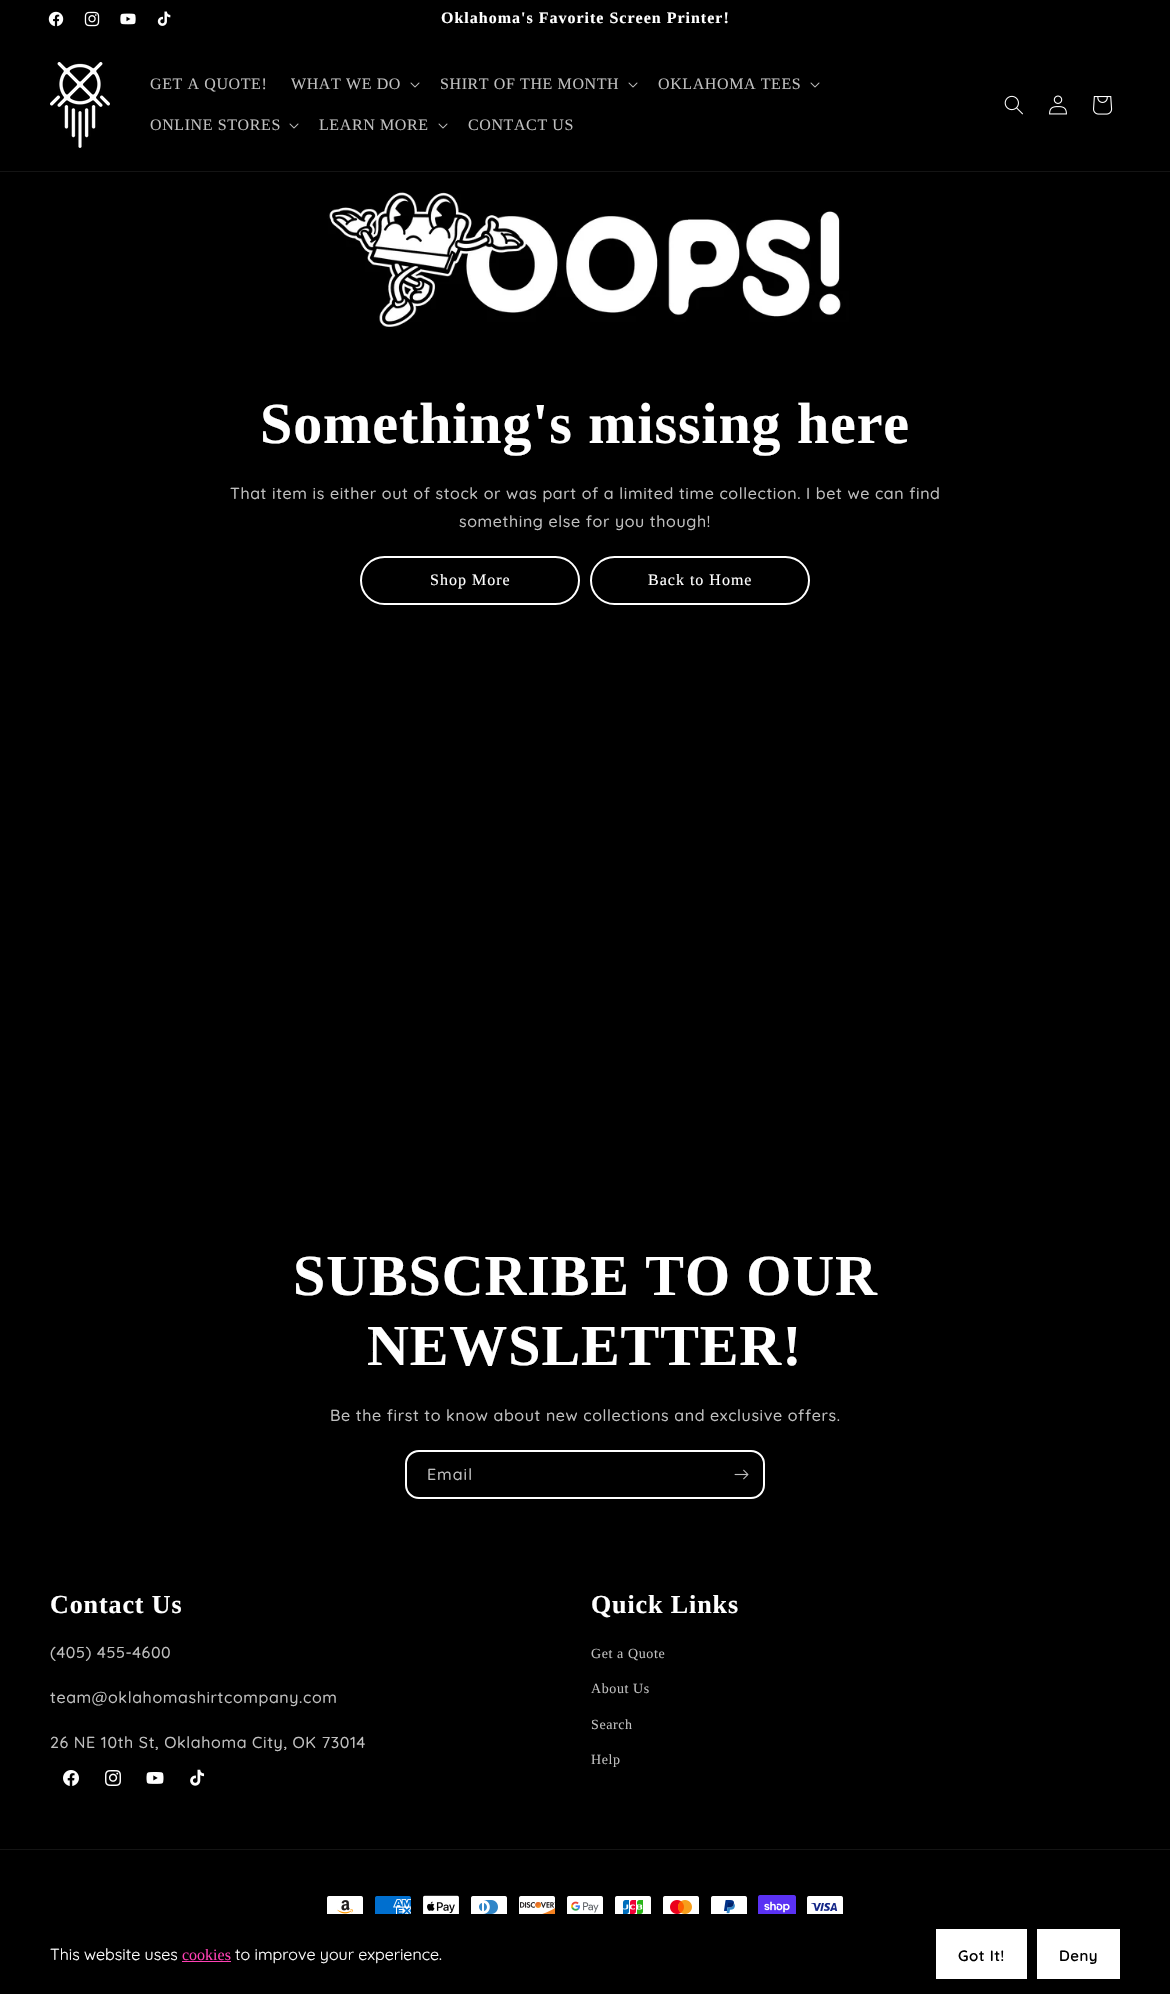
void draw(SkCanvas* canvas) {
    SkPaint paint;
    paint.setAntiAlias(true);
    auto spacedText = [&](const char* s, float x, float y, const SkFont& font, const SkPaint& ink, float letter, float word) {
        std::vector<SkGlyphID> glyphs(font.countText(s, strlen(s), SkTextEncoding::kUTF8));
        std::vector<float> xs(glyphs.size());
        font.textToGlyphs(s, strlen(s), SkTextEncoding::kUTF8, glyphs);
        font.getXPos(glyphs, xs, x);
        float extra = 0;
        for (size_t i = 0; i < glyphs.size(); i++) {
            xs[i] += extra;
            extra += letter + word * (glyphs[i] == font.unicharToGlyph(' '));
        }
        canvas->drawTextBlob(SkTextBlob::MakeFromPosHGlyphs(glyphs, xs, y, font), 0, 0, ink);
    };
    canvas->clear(0xFF000000);
    canvas->drawImageRect(SkImages::DeferredFromEncodedData(SkData::MakeFromFileName("img1.png")), SkRect::MakeXYWH(48, 11, 16, 16), SkSamplingOptions());
    canvas->drawImageRect(SkImages::DeferredFromEncodedData(SkData::MakeFromFileName("img2.png")), SkRect::MakeXYWH(84, 11, 16, 16), SkSamplingOptions());
    canvas->drawImageRect(SkImages::DeferredFromEncodedData(SkData::MakeFromFileName("img3.png")), SkRect::MakeXYWH(120, 13, 16, 12), SkSamplingOptions());
    canvas->drawImageRect(SkImages::DeferredFromEncodedData(SkData::MakeFromFileName("img4.png")), SkRect::MakeXYWH(157, 11, 14, 15), SkSamplingOptions());
    SkFont font1(fontMgr->matchFamilyStyle("Liberation Serif", SkFontStyle::Bold()), 16);
    font1.setSubpixel(true);
    paint.setColor(0xFFFFFFFF);
    spacedText("Oklahoma's Favorite Screen Printer!", 441, 23, font1, paint, 1, 0);
    paint.setColor(0xFF141414);
    canvas->drawRect(SkRect::MakeXYWH(0, 171, 1170, 1), paint);
    canvas->drawImageRect(SkImages::DeferredFromEncodedData(SkData::MakeFromFileName("img5.png")), SkRect::MakeXYWH(50, 62, 60, 86), SkSamplingOptions());
    SkFont font2(fontMgr->matchFamilyStyle("Liberation Serif", SkFontStyle::Normal()), 16);
    font2.setSubpixel(true);
    paint.setColor(0xFFBFBFBF);
    spacedText("GET A QUOTE!", 150, 89, font2, paint, 0.6f, 0);
    spacedText("WHAT WE DO", 291, 89, font2, paint, 0.6f, 0);
    canvas->drawImageRect(SkImages::DeferredFromEncodedData(SkData::MakeFromFileName("img6.png")), SkRect::MakeXYWH(410, 82, 10, 6), SkSamplingOptions());
    spacedText("SHIRT OF THE MONTH", 440, 89, font2, paint, 0.6f, 0);
    canvas->drawImageRect(SkImages::DeferredFromEncodedData(SkData::MakeFromFileName("img6.png")), SkRect::MakeXYWH(628, 82, 10, 6), SkSamplingOptions());
    spacedText("OKLAHOMA TEES", 658, 89, font2, paint, 0.6f, 0);
    canvas->drawImageRect(SkImages::DeferredFromEncodedData(SkData::MakeFromFileName("img6.png")), SkRect::MakeXYWH(810, 82, 10, 6), SkSamplingOptions());
    spacedText("ONLINE STORES", 150, 130, font2, paint, 0.6f, 0);
    canvas->drawImageRect(SkImages::DeferredFromEncodedData(SkData::MakeFromFileName("img6.png")), SkRect::MakeXYWH(289, 123, 10, 6), SkSamplingOptions());
    spacedText("LEARN MORE", 319, 130, font2, paint, 0.6f, 0);
    canvas->drawImageRect(SkImages::DeferredFromEncodedData(SkData::MakeFromFileName("img6.png")), SkRect::MakeXYWH(438, 123, 10, 6), SkSamplingOptions());
    spacedText("CONTACT US", 468, 130, font2, paint, 0.6f, 0);
    canvas->drawImageRect(SkImages::DeferredFromEncodedData(SkData::MakeFromFileName("img7.png")), SkRect::MakeXYWH(1004, 95, 19, 20), SkSamplingOptions());
    canvas->drawImageRect(SkImages::DeferredFromEncodedData(SkData::MakeFromFileName("img8.png")), SkRect::MakeXYWH(1049, 95, 18, 20), SkSamplingOptions());
    canvas->drawImageRect(SkImages::DeferredFromEncodedData(SkData::MakeFromFileName("img9.png")), SkRect::MakeXYWH(1093, 96, 20, 19), SkSamplingOptions());
    canvas->drawImageRect(SkImages::DeferredFromEncodedData(SkData::MakeFromFileName("img10.png")), SkRect::MakeXYWH(0, 172, 1170, 177), SkSamplingOptions());
    SkFont font3(fontMgr->matchFamilyStyle("Liberation Serif", SkFontStyle::Bold()), 58);
    font3.setSubpixel(true);
    paint.setColor(0xFFFFFFFF);
    spacedText("Something's missing here", 260, 443, font3, paint, 0.9f, 0);
    SkFont font4(fontMgr->matchFamilyStyle("Quicksand", SkFontStyle(500, SkFontStyle::kNormal_Width, SkFontStyle::kUpright_Slant)), 16);
    font4.setSubpixel(true);
    paint.setColor(0xFFBFBFBF);
    spacedText("That item is either out of stock or was part of a limited time collection. I bet we can find", 230, 499, font4, paint, 0.6f, 0);
    spacedText("something else for you though!", 459, 527, font4, paint, 0.6f, 0);
    paint.setStyle(SkPaint::kStroke_Style);
    paint.setStrokeWidth(2);
    paint.setColor(0xFFFFFFFF);
    canvas->drawRoundRect(SkRect::MakeXYWH(361, 557, 218, 47), 23.5f, 23.5f, paint);
    paint.setStyle(SkPaint::kFill_Style);
    spacedText("Shop More", 430, 585, font2, paint, 1, 0);
    paint.setStyle(SkPaint::kStroke_Style);
    canvas->drawRoundRect(SkRect::MakeXYWH(591, 557, 218, 47), 23.5f, 23.5f, paint);
    paint.setStyle(SkPaint::kFill_Style);
    spacedText("Back to Home", 648, 585, font2, paint, 1, 0);
    spacedText("SUBSCRIBE TO OUR", 293, 1295, font3, paint, 0.9f, 0);
    spacedText("NEWSLETTER!", 367, 1365, font3, paint, 0.9f, 0);
    paint.setColor(0xFFBFBFBF);
    spacedText("Be the first to know about new collections and exclusive offers.", 330, 1421, font4, paint, 0.6f, 0);
    paint.setStyle(SkPaint::kStroke_Style);
    paint.setColor(0xFFFFFFFF);
    canvas->drawRoundRect(SkRect::MakeXYWH(406, 1451, 358, 47), 13, 13, paint);
    paint.setStyle(SkPaint::kFill_Style);
    paint.setColor(0xFFBFBFBF);
    spacedText("Email", 427, 1480, font4, paint, 1, 0);
    canvas->drawImageRect(SkImages::DeferredFromEncodedData(SkData::MakeFromFileName("img11.png")), SkRect::MakeXYWH(734, 1469, 15, 11), SkSamplingOptions());
    SkFont font5(fontMgr->matchFamilyStyle("Liberation Serif", SkFontStyle::Bold()), 26);
    font5.setSubpixel(true);
    paint.setColor(0xFFFFFFFF);
    spacedText("Contact Us", 50, 1613, font5, paint, 0.9f, 0);
    paint.setColor(0xFFBFBFBF);
    spacedText("(405) 455-4600", 50, 1658, font4, paint, 0.6f, 0);
    spacedText("team@oklahomashirtcompany.com", 50, 1703, font4, paint, 0.6f, 0);
    spacedText("26 NE 10th St, Oklahoma City, OK 73014", 50, 1748, font4, paint, 0.6f, 0);
    canvas->drawImageRect(SkImages::DeferredFromEncodedData(SkData::MakeFromFileName("img12.png")), SkRect::MakeXYWH(63, 1770, 16, 16), SkSamplingOptions());
    canvas->drawImageRect(SkImages::DeferredFromEncodedData(SkData::MakeFromFileName("img13.png")), SkRect::MakeXYWH(105, 1770, 16, 16), SkSamplingOptions());
    canvas->drawImageRect(SkImages::DeferredFromEncodedData(SkData::MakeFromFileName("img14.png")), SkRect::MakeXYWH(146, 1772, 18, 12), SkSamplingOptions());
    canvas->drawImageRect(SkImages::DeferredFromEncodedData(SkData::MakeFromFileName("img15.png")), SkRect::MakeXYWH(190, 1769, 15, 17), SkSamplingOptions());
    paint.setColor(0xFFFFFFFF);
    spacedText("Quick Links", 591, 1613, font5, paint, 0.9f, 0);
    SkFont font6(fontMgr->matchFamilyStyle("Liberation Serif", SkFontStyle::Normal()), 14);
    font6.setSubpixel(true);
    paint.setColor(0xFFBFBFBF);
    spacedText("Get a Quote", 591, 1658, font6, paint, 0.6f, 0);
    spacedText("About Us", 591, 1693, font6, paint, 0.6f, 0);
    spacedText("Search", 591, 1729, font6, paint, 0.6f, 0);
    spacedText("Help", 591, 1764, font6, paint, 0.6f, 0);
    paint.setColor(0xFF141414);
    canvas->drawRect(SkRect::MakeXYWH(0, 1849, 1170, 1), paint);
    canvas->drawImageRect(SkImages::DeferredFromEncodedData(SkData::MakeFromFileName("img16.png")), SkRect::MakeXYWH(327, 1896, 36, 18), SkSamplingOptions());
    canvas->drawImageRect(SkImages::DeferredFromEncodedData(SkData::MakeFromFileName("img17.png")), SkRect::MakeXYWH(375, 1896, 36, 18), SkSamplingOptions());
    canvas->drawImageRect(SkImages::DeferredFromEncodedData(SkData::MakeFromFileName("img18.png")), SkRect::MakeXYWH(423, 1895, 36, 19), SkSamplingOptions());
    canvas->drawImageRect(SkImages::DeferredFromEncodedData(SkData::MakeFromFileName("img19.png")), SkRect::MakeXYWH(471, 1896, 36, 18), SkSamplingOptions());
    canvas->drawImageRect(SkImages::DeferredFromEncodedData(SkData::MakeFromFileName("img20.png")), SkRect::MakeXYWH(519, 1896, 37, 18), SkSamplingOptions());
    canvas->drawImageRect(SkImages::DeferredFromEncodedData(SkData::MakeFromFileName("img21.png")), SkRect::MakeXYWH(567, 1896, 36, 18), SkSamplingOptions());
    canvas->drawImageRect(SkImages::DeferredFromEncodedData(SkData::MakeFromFileName("img22.png")), SkRect::MakeXYWH(615, 1896, 36, 18), SkSamplingOptions());
    canvas->drawImageRect(SkImages::DeferredFromEncodedData(SkData::MakeFromFileName("img23.png")), SkRect::MakeXYWH(663, 1896, 36, 18), SkSamplingOptions());
    canvas->drawImageRect(SkImages::DeferredFromEncodedData(SkData::MakeFromFileName("img24.png")), SkRect::MakeXYWH(711, 1896, 36, 18), SkSamplingOptions());
    canvas->drawImageRect(SkImages::DeferredFromEncodedData(SkData::MakeFromFileName("img25.png")), SkRect::MakeXYWH(758, 1895, 38, 19), SkSamplingOptions());
    canvas->drawImageRect(SkImages::DeferredFromEncodedData(SkData::MakeFromFileName("img26.png")), SkRect::MakeXYWH(807, 1896, 36, 18), SkSamplingOptions());
    SkFont font7(fontMgr->matchFamilyStyle("Quicksand", SkFontStyle::Normal()), 16);
    font7.setSubpixel(true);
    paint.setColor(0xFFFFFFFF);
    canvas->drawString("This website uses", 50, 1960, font7, paint);
    paint.setColor(0xFFFF40B4);
    canvas->drawString("cookies", 182, 1960, font2, paint);
    canvas->drawRect(SkRect::MakeXYWH(182, 1961, 49, 1), paint);
    paint.setColor(0xFFFFFFFF);
    canvas->drawString("to improve your experience.", 235, 1960, font7, paint);
    canvas->drawRect(SkRect::MakeXYWH(936, 1929, 91, 50), paint);
    SkFont font8(fontMgr->matchFamilyStyle("Quicksand", SkFontStyle(600, SkFontStyle::kNormal_Width, SkFontStyle::kUpright_Slant)), 15);
    font8.setSubpixel(true);
    paint.setColor(0xFF000000);
    spacedText("Got It!", 958, 1961, font8, paint, 0.5f, 0);
    paint.setColor(0xFFFFFFFF);
    canvas->drawRect(SkRect::MakeXYWH(1037, 1929, 83, 50), paint);
    paint.setColor(0xFF000000);
    spacedText("Deny", 1059, 1961, font8, paint, 0.5f, 0);
}
